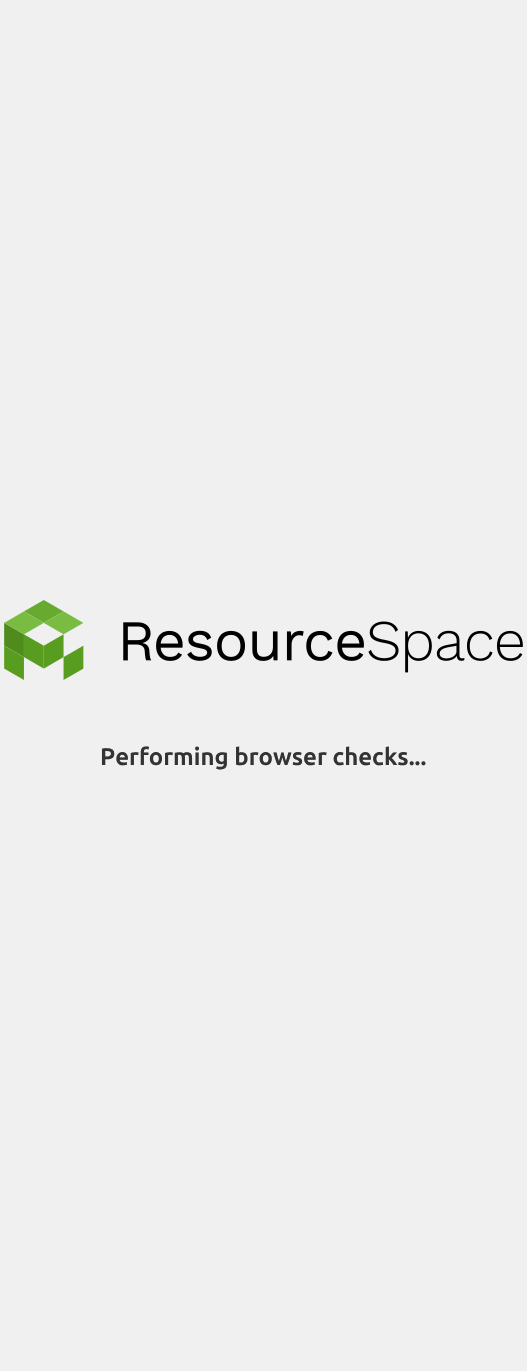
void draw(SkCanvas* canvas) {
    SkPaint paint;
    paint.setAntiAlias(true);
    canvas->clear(0xFFF0F0F0);
    canvas->drawImageRect(SkImages::DeferredFromEncodedData(SkData::MakeFromFileName("img1.png")), SkRect::MakeXYWH(4, 600, 519, 80), SkSamplingOptions());
    SkFont font1(fontMgr->matchFamilyStyle("Ubuntu", SkFontStyle::Bold()), 24);
    font1.setSubpixel(true);
    paint.setColor(0xFF333333);
    canvas->drawString("Performing browser checks...", 100, 765, font1, paint);
}
